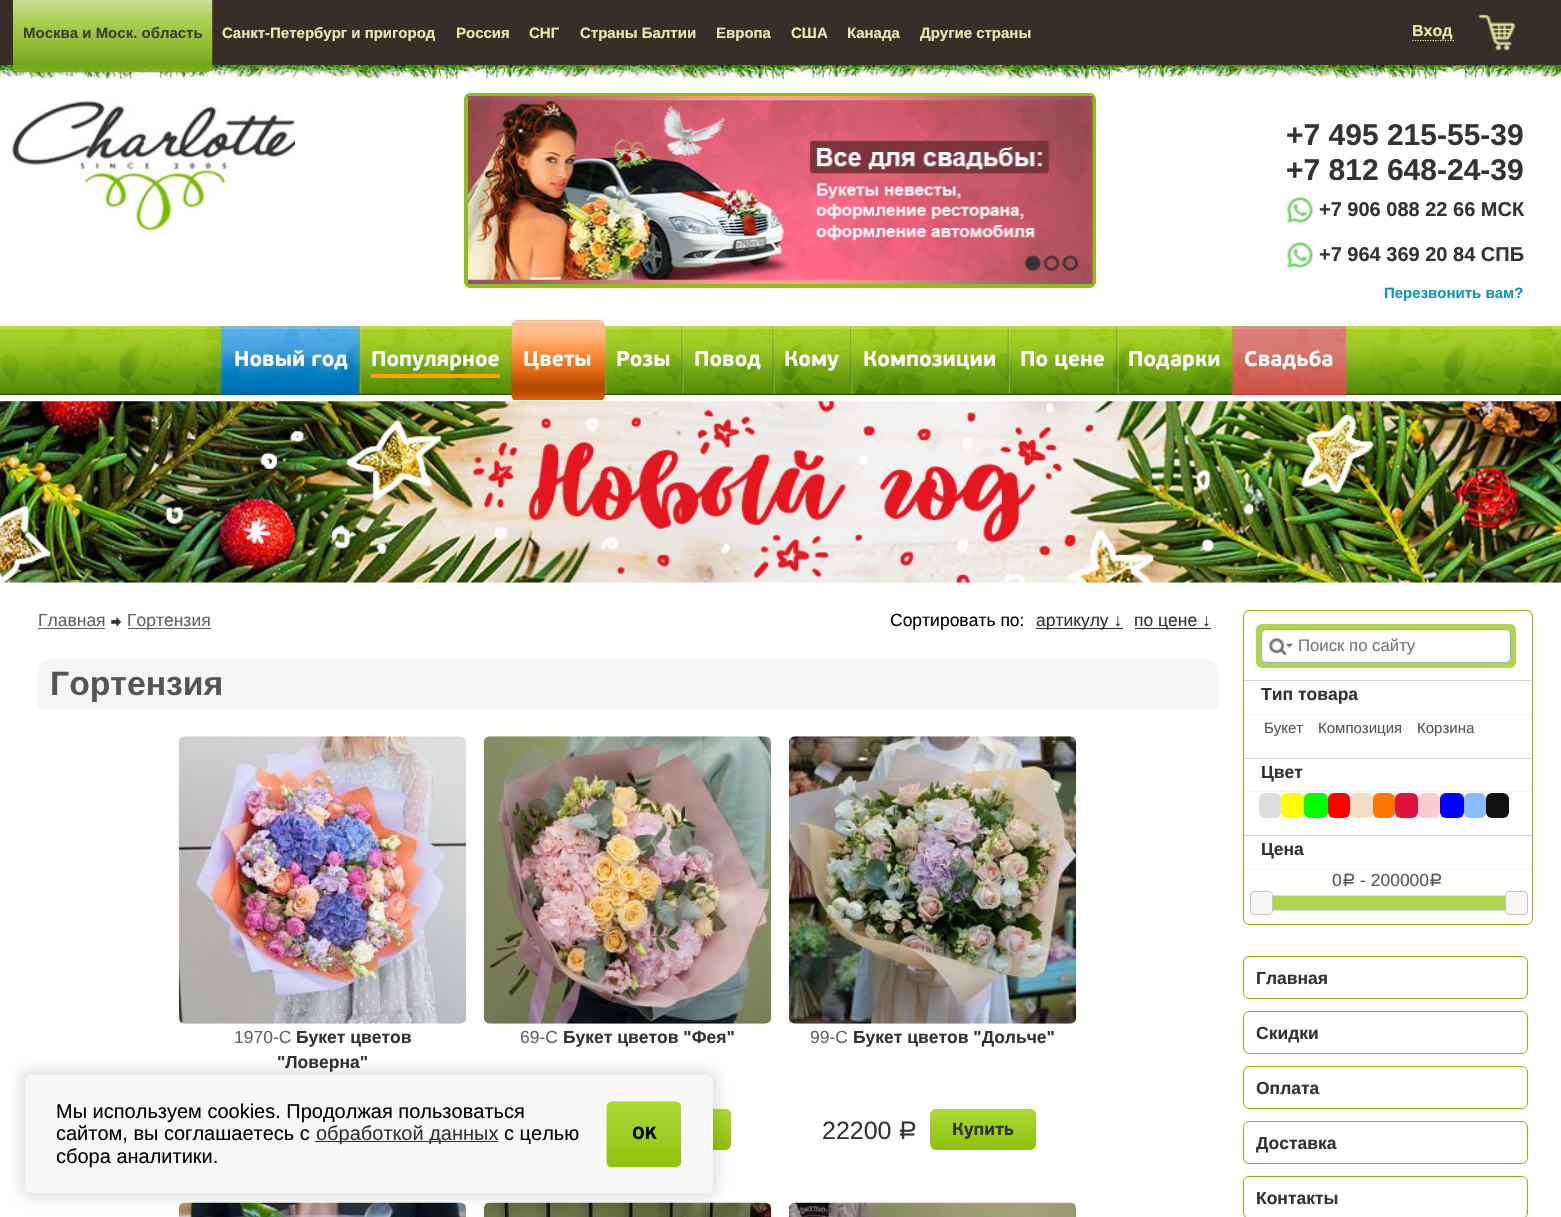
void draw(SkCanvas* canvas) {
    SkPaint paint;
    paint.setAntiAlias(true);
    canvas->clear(0xFFFFFFFF);
    canvas->drawImageRect(SkImages::DeferredFromEncodedData(SkData::MakeFromFileName("img1.png")), SkRect::MakeXYWH(0, 0, 1561, 80), SkSamplingOptions());
    paint.setColor(0xE6372E29);
    canvas->drawRect(SkRect::MakeXYWH(0, 60, 1561, 5), paint);
    canvas->drawImageRect(SkImages::DeferredFromEncodedData(SkData::MakeFromFileName("img2.png")), SkRect::MakeXYWH(13, 0, 200, 73), SkSamplingOptions());
    SkFont font1(fontMgr->matchFamilyStyle("Liberation Sans", SkFontStyle::Bold()), 15);
    font1.setSubpixel(true);
    paint.setColor(0xFF3E3B3A);
    canvas->drawString("Москва и Моск. область", 23, 38, font1, paint);
    paint.setColor(0xFFEBE7AB);
    canvas->drawString("Санкт-Петербург и пригород", 222, 38, font1, paint);
    canvas->drawString("Россия", 456, 38, font1, paint);
    canvas->drawString("СНГ", 529, 38, font1, paint);
    canvas->drawString("Страны Балтии", 580, 38, font1, paint);
    canvas->drawString("Европа", 716, 38, font1, paint);
    canvas->drawString("США", 791, 38, font1, paint);
    canvas->drawString("Канада", 847, 38, font1, paint);
    canvas->drawString("Другие страны", 920, 38, font1, paint);
    paint.setStyle(SkPaint::kStroke_Style);
    paint.setStrokeWidth(1.2f);
    paint.setPathEffect(SkDashPathEffect::Make({{1.25f, 1.25f}}, 0));
    canvas->drawPath(SkPathBuilder().moveTo(1412.5f, 40.5f).lineTo(1454, 40.5f).detach(), paint);
    paint.setPathEffect(nullptr);
    SkFont font2(fontMgr->matchFamilyStyle("Liberation Sans", SkFontStyle::Bold()), 16);
    font2.setSubpixel(true);
    paint.setStyle(SkPaint::kFill_Style);
    canvas->drawString("Вход", 1412, 36, font2, paint);
    canvas->drawImageRect(SkImages::DeferredFromEncodedData(SkData::MakeFromFileName("img3.png")), SkRect::MakeXYWH(1478, 14, 37, 37), SkSamplingOptions());
    canvas->drawImageRect(SkImages::DeferredFromEncodedData(SkData::MakeFromFileName("img4.png")), SkRect::MakeXYWH(12, 101, 283, 130), SkSamplingOptions());
    paint.setStyle(SkPaint::kStroke_Style);
    paint.setStrokeWidth(4);
    paint.setColor(0xFF8DBF17);
    canvas->drawRoundRect(SkRect::MakeXYWH(466, 95, 628, 191), 4, 4, paint);
    canvas->drawImageRect(SkImages::DeferredFromEncodedData(SkData::MakeFromFileName("img5.png")), SkRect::MakeXYWH(468, 96, 625, 188), SkSamplingOptions());
    canvas->drawImageRect(SkImages::DeferredFromEncodedData(SkData::MakeFromFileName("img6.png")), SkRect::MakeXYWH(1025, 255, 17, 17), SkSamplingOptions());
    canvas->drawImageRect(SkImages::DeferredFromEncodedData(SkData::MakeFromFileName("img7.png")), SkRect::MakeXYWH(1043, 255, 17, 17), SkSamplingOptions());
    canvas->drawImageRect(SkImages::DeferredFromEncodedData(SkData::MakeFromFileName("img8.png")), SkRect::MakeXYWH(1062, 255, 17, 17), SkSamplingOptions());
    SkFont font3(fontMgr->matchFamilyStyle("Liberation Sans", SkFontStyle::Bold()), 30);
    font3.setSubpixel(true);
    paint.setStyle(SkPaint::kFill_Style);
    paint.setColor(0xFF333333);
    canvas->drawString("+7 495 215-55-39", 1286, 145, font3, paint);
    canvas->drawString("+7 812 648-24-39", 1286, 180, font3, paint);
    canvas->drawImageRect(SkImages::DeferredFromEncodedData(SkData::MakeFromFileName("img9.png")), SkRect::MakeXYWH(1287, 197, 26, 26), SkSamplingOptions());
    SkFont font4(fontMgr->matchFamilyStyle("Liberation Sans", SkFontStyle::Bold()), 20);
    font4.setSubpixel(true);
    canvas->drawString("+7 906 088 22 66 МСК", 1319, 216, font4, paint);
    canvas->drawImageRect(SkImages::DeferredFromEncodedData(SkData::MakeFromFileName("img9.png")), SkRect::MakeXYWH(1287, 242, 26, 26), SkSamplingOptions());
    canvas->drawString("+7 964 369 20 84 СПБ", 1319, 261, font4, paint);
    paint.setColor(0xFF1591BA);
    canvas->drawString("Перезвонить вам?", 1384, 298, font1, paint);
    canvas->drawImageRect(SkImages::DeferredFromEncodedData(SkData::MakeFromFileName("img10.png")), SkRect::MakeXYWH(0, 326, 1561, 69), SkSamplingOptions());
    canvas->drawImageRect(SkImages::DeferredFromEncodedData(SkData::MakeFromFileName("img11.png")), SkRect::MakeXYWH(221, 326, 3, 69), SkSamplingOptions());
    canvas->drawImageRect(SkImages::DeferredFromEncodedData(SkData::MakeFromFileName("img12.png")), SkRect::MakeXYWH(221, 326, 139, 70), SkSamplingOptions());
    SkFont font5(fontMgr->matchFamilyStyle("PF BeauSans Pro", SkFontStyle::Bold()), 21.25f);
    font5.setSubpixel(true);
    paint.setColor(0xFFFFFFFF);
    canvas->drawString("Новый год", 234, 366, font5, paint);
    canvas->drawImageRect(SkImages::DeferredFromEncodedData(SkData::MakeFromFileName("img13.png")), SkRect::MakeXYWH(358, 326, 4, 69), SkSamplingOptions());
    canvas->drawString("Популярное", 371, 366, font5, paint);
    paint.setColor(0xFFFFA500);
    canvas->drawRect(SkRect::MakeXYWH(371, 374, 129, 4), paint);
    canvas->drawImageRect(SkImages::DeferredFromEncodedData(SkData::MakeFromFileName("img14.png")), SkRect::MakeXYWH(511, 326, 1, 69), SkSamplingOptions());
    canvas->drawImageRect(SkImages::DeferredFromEncodedData(SkData::MakeFromFileName("img16.png")), SkRect::MakeXYWH(604, 326, 3, 69), SkSamplingOptions());
    canvas->drawImageRect(SkImages::DeferredFromEncodedData(SkData::MakeFromFileName("img15.png")), SkRect::MakeXYWH(511, 320, 94, 80), SkSamplingOptions());
    paint.setColor(0xFFFFFFFF);
    canvas->drawString("Цветы", 523, 366, font5, paint);
    canvas->drawString("Розы", 616, 366, font5, paint);
    canvas->drawImageRect(SkImages::DeferredFromEncodedData(SkData::MakeFromFileName("img17.png")), SkRect::MakeXYWH(681, 326, 3, 69), SkSamplingOptions());
    canvas->drawString("Повод", 694, 366, font5, paint);
    canvas->drawImageRect(SkImages::DeferredFromEncodedData(SkData::MakeFromFileName("img18.png")), SkRect::MakeXYWH(772, 326, 3, 69), SkSamplingOptions());
    canvas->drawString("Кому", 784, 366, font5, paint);
    canvas->drawImageRect(SkImages::DeferredFromEncodedData(SkData::MakeFromFileName("img19.png")), SkRect::MakeXYWH(850, 326, 3, 69), SkSamplingOptions());
    canvas->drawString("Композиции", 863, 366, font5, paint);
    canvas->drawImageRect(SkImages::DeferredFromEncodedData(SkData::MakeFromFileName("img20.png")), SkRect::MakeXYWH(1007, 326, 3, 69), SkSamplingOptions());
    canvas->drawString("По цене", 1020, 366, font5, paint);
    canvas->drawImageRect(SkImages::DeferredFromEncodedData(SkData::MakeFromFileName("img21.png")), SkRect::MakeXYWH(1116, 326, 3, 69), SkSamplingOptions());
    canvas->drawString("Подарки", 1128, 366, font5, paint);
    canvas->drawImageRect(SkImages::DeferredFromEncodedData(SkData::MakeFromFileName("img22.png")), SkRect::MakeXYWH(1232, 326, 115, 69), SkSamplingOptions());
    canvas->drawImageRect(SkImages::DeferredFromEncodedData(SkData::MakeFromFileName("img23.png")), SkRect::MakeXYWH(1232, 326, 115, 70), SkSamplingOptions());
    canvas->drawString("Свадьба", 1244, 366, font5, paint);
    canvas->drawImageRect(SkImages::DeferredFromEncodedData(SkData::MakeFromFileName("img24.png")), SkRect::MakeXYWH(0, 401, 1561, 182), SkSamplingOptions());
    SkFont font6(fontMgr->matchFamilyStyle("Liberation Sans", SkFontStyle::Normal()), 17.5f);
    font6.setSubpixel(true);
    paint.setColor(0xFF616161);
    canvas->drawString("Главная", 38, 626, font6, paint);
    canvas->drawRect(SkRect::MakeXYWH(38, 628, 67, 1), paint);
    canvas->drawImageRect(SkImages::DeferredFromEncodedData(SkData::MakeFromFileName("img25.png")), SkRect::MakeXYWH(111, 617, 11, 10), SkSamplingOptions());
    canvas->drawRect(SkRect::MakeXYWH(128, 628, 83, 1), paint);
    canvas->drawString("Гортензия", 127, 626, font6, paint);
    paint.setColor(0xFF000000);
    canvas->drawString("Сортировать по:", 890, 626, font6, paint);
    paint.setColor(0xFF333333);
    canvas->drawRect(SkRect::MakeXYWH(1036, 628, 87, 1), paint);
    canvas->drawString("артикулу ↓", 1036, 626, font6, paint);
    canvas->drawRect(SkRect::MakeXYWH(1135, 628, 76, 1), paint);
    canvas->drawString("по цене ↓", 1134, 626, font6, paint);
    paint.setColor(0xFFF6F6F6);
    canvas->drawPath(SkPathBuilder().moveTo(51, 659).lineTo(1205, 659).cubicTo(1212, 659, 1218, 665, 1218, 672).lineTo(1218, 709).lineTo(38, 709).lineTo(38, 672).cubicTo(38, 665, 44, 659, 51, 659).close().detach(), paint);
    SkFont font7(fontMgr->matchFamilyStyle("Liberation Sans", SkFontStyle::Bold()), 33.75f);
    font7.setSubpixel(true);
    paint.setColor(0xFF555555);
    canvas->drawString("Гортензия", 50, 695, font7, paint);
    canvas->drawImageRect(SkImages::DeferredFromEncodedData(SkData::MakeFromFileName("img26.png")), SkRect::MakeXYWH(178, 736, 289, 288), SkSamplingOptions());
    paint.setColor(0xFF616161);
    canvas->drawString("1970-C", 234, 1043, font6, paint);
    SkFont font8(fontMgr->matchFamilyStyle("Liberation Sans", SkFontStyle::Bold()), 17.5f);
    font8.setSubpixel(true);
    paint.setColor(0xFF333333);
    canvas->drawString("Букет цветов", 296, 1043, font8, paint);
    canvas->drawString("\"Ловерна\"", 277, 1068, font8, paint);
    canvas->drawImageRect(SkImages::DeferredFromEncodedData(SkData::MakeFromFileName("img27.png")), SkRect::MakeXYWH(483, 736, 289, 288), SkSamplingOptions());
    paint.setColor(0xFF616161);
    canvas->drawString("69-C", 520, 1043, font6, paint);
    paint.setColor(0xFF333333);
    canvas->drawString("Букет цветов \"Фея\"", 563, 1043, font8, paint);
    canvas->drawImageRect(SkImages::DeferredFromEncodedData(SkData::MakeFromFileName("img28.png")), SkRect::MakeXYWH(713, 1108, 19, 42), SkSamplingOptions());
    canvas->drawImageRect(SkImages::DeferredFromEncodedData(SkData::MakeFromFileName("img29.png")), SkRect::MakeXYWH(788, 736, 289, 288), SkSamplingOptions());
    paint.setColor(0xFF616161);
    canvas->drawString("99-C", 810, 1043, font6, paint);
    paint.setColor(0xFF333333);
    canvas->drawString("Букет цветов \"Дольче\"", 853, 1043, font8, paint);
    SkFont font9(fontMgr->matchFamilyStyle("Liberation Sans", SkFontStyle::Normal()), 25);
    font9.setSubpixel(true);
    canvas->drawString("22200", 822, 1139, font9, paint);
    SkFont font10(fontMgr->matchFamilyStyle("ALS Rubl", SkFontStyle::Normal()), 25);
    font10.setSubpixel(true);
    canvas->drawString("a", 898, 1139, font10, paint);
    canvas->drawImageRect(SkImages::DeferredFromEncodedData(SkData::MakeFromFileName("img30.png")), SkRect::MakeXYWH(930, 1108, 107, 42), SkSamplingOptions());
    SkFont font11(fontMgr->matchFamilyStyle("PF BeauSans Pro", SkFontStyle::Bold()), 17.5f);
    font11.setSubpixel(true);
    canvas->drawString("Купить", 952, 1135, font11, paint);
    canvas->drawImageRect(SkImages::DeferredFromEncodedData(SkData::MakeFromFileName("img31.png")), SkRect::MakeXYWH(178, 1202, 289, 15), SkSamplingOptions());
    canvas->drawImageRect(SkImages::DeferredFromEncodedData(SkData::MakeFromFileName("img32.png")), SkRect::MakeXYWH(483, 1202, 289, 15), SkSamplingOptions());
    canvas->drawImageRect(SkImages::DeferredFromEncodedData(SkData::MakeFromFileName("img33.png")), SkRect::MakeXYWH(788, 1202, 289, 15), SkSamplingOptions());
    paint.setStyle(SkPaint::kStroke_Style);
    paint.setStrokeWidth(1);
    paint.setColor(0xFF82B51A);
    canvas->drawRoundRect(SkRect::MakeXYWH(1243.5f, 610.5f, 289, 314), 5.5f, 5.5f, paint);
    paint.setStyle(SkPaint::kFill_Style);
    paint.setColor(0xFFADD64C);
    canvas->drawRoundRect(SkRect::MakeXYWH(1256, 624, 260, 44), 6, 6, paint);
    paint.setColor(0xFFFFFFFF);
    canvas->drawRoundRect(SkRect::MakeXYWH(1261, 629, 250, 34), 6, 6, paint);
    canvas->drawImageRect(SkImages::DeferredFromEncodedData(SkData::MakeFromFileName("img34.png")), SkRect::MakeXYWH(1268, 637, 25, 18), SkSamplingOptions());
    paint.setStyle(SkPaint::kStroke_Style);
    paint.setColor(0xFFAAAAAA);
    canvas->drawRoundRect(SkRect::MakeXYWH(1261.5f, 629.5f, 249, 33), 5.5f, 5.5f, paint);
    SkFont font12(fontMgr->matchFamilyStyle("Liberation Sans", SkFontStyle::Normal()), 16.75f);
    font12.setSubpixel(true);
    paint.setStyle(SkPaint::kFill_Style);
    paint.setColor(0xFF757575);
    canvas->drawString("Поиск по сайту", 1298, 651, font12, paint);
    paint.setColor(0xFFD6D6D6);
    canvas->drawRect(SkRect::MakeXYWH(1244, 680, 287, 1), paint);
    paint.setColor(0xFF333333);
    canvas->drawString("Тип товара", 1261, 700, font8, paint);
    paint.setColor(0xFFF4F4F4);
    canvas->drawRect(SkRect::MakeXYWH(1244, 714, 287, 1), paint);
    SkFont font13(fontMgr->matchFamilyStyle("Liberation Sans", SkFontStyle::Normal()), 15);
    font13.setSubpixel(true);
    paint.setColor(0xFF555555);
    canvas->drawString("Букет", 1264, 733, font13, paint);
    canvas->drawString("Композиция", 1318, 733, font13, paint);
    canvas->drawString("Корзина", 1417, 733, font13, paint);
    paint.setColor(0xFFD6D6D6);
    canvas->drawRect(SkRect::MakeXYWH(1244, 758, 287, 1), paint);
    paint.setColor(0xFF333333);
    canvas->drawString("Цвет", 1261, 778, font8, paint);
    paint.setColor(0xFFF4F4F4);
    canvas->drawRect(SkRect::MakeXYWH(1244, 791, 287, 1), paint);
    paint.setColor(0xFFDDDDDD);
    canvas->drawRoundRect(SkRect::MakeXYWH(1259, 793, 22, 25), 6, 6, paint);
    paint.setColor(0xFFFFFF00);
    canvas->drawRoundRect(SkRect::MakeXYWH(1281, 793, 23, 25), 6, 6, paint);
    paint.setColor(0xFF00FF00);
    canvas->drawRoundRect(SkRect::MakeXYWH(1304, 793, 24, 25), 6, 6, paint);
    paint.setColor(0xFFFF0000);
    canvas->drawRoundRect(SkRect::MakeXYWH(1328, 793, 22, 25), 6, 6, paint);
    paint.setColor(0xFFF2DDC6);
    canvas->drawRoundRect(SkRect::MakeXYWH(1350, 793, 23, 25), 6, 6, paint);
    paint.setColor(0xFFFF7700);
    canvas->drawRoundRect(SkRect::MakeXYWH(1373, 793, 22, 25), 6, 6, paint);
    paint.setColor(0xFFDC143C);
    canvas->drawRoundRect(SkRect::MakeXYWH(1395, 793, 23, 25), 6, 6, paint);
    paint.setColor(0xFFFFCCCC);
    canvas->drawRoundRect(SkRect::MakeXYWH(1418, 793, 22, 25), 6, 6, paint);
    paint.setColor(0xFF0000FF);
    canvas->drawRoundRect(SkRect::MakeXYWH(1440, 793, 24, 25), 6, 6, paint);
    paint.setColor(0xFF88BBFF);
    canvas->drawRoundRect(SkRect::MakeXYWH(1464, 793, 22, 25), 6, 6, paint);
    paint.setColor(0xFF111111);
    canvas->drawRoundRect(SkRect::MakeXYWH(1486, 793, 23, 25), 6, 6, paint);
    paint.setColor(0xFFD6D6D6);
    canvas->drawRect(SkRect::MakeXYWH(1244, 835, 287, 1), paint);
    paint.setColor(0xFF333333);
    canvas->drawString("Цена", 1261, 855, font8, paint);
    paint.setColor(0xFFF4F4F4);
    canvas->drawRect(SkRect::MakeXYWH(1244, 869, 287, 1), paint);
    paint.setColor(0xFF555555);
    canvas->drawString("0", 1332, 886, font6, paint);
    SkFont font14(fontMgr->matchFamilyStyle("ALS Rubl", SkFontStyle::Normal()), 17.5f);
    font14.setSubpixel(true);
    canvas->drawString("a", 1342, 886, font14, paint);
    canvas->drawString("- 200000", 1360, 886, font6, paint);
    canvas->drawString("a", 1429, 886, font14, paint);
    paint.setStyle(SkPaint::kStroke_Style);
    paint.setColor(0xFFDDDDDD);
    canvas->drawRect(SkRect::MakeXYWH(1259.5f, 895.5f, 256, 15), paint);
    paint.setStyle(SkPaint::kFill_Style);
    paint.setColor(0xFFF6F6F6);
    canvas->drawRoundRect(SkRect::MakeXYWH(1250.5f, 891.5f, 22, 23), 3.5f, 3.5f, paint);
    paint.setStyle(SkPaint::kStroke_Style);
    paint.setColor(0xFFC5C5C5);
    canvas->drawRoundRect(SkRect::MakeXYWH(1250.5f, 891.5f, 22, 23), 3.5f, 3.5f, paint);
    paint.setStyle(SkPaint::kFill_Style);
    paint.setColor(0xFFADD64C);
    canvas->drawRect(SkRect::MakeXYWH(1273, 896, 232, 14), paint);
    paint.setColor(0xFFF6F6F6);
    canvas->drawRoundRect(SkRect::MakeXYWH(1505.5f, 891.5f, 22, 23), 3.5f, 3.5f, paint);
    paint.setStyle(SkPaint::kStroke_Style);
    paint.setColor(0xFFC5C5C5);
    canvas->drawRoundRect(SkRect::MakeXYWH(1505.5f, 891.5f, 22, 23), 3.5f, 3.5f, paint);
    paint.setColor(0xFF82B51A);
    canvas->drawRoundRect(SkRect::MakeXYWH(1243.5f, 956.5f, 284, 42), 5.5f, 5.5f, paint);
    paint.setStyle(SkPaint::kFill_Style);
    paint.setColor(0xFF333333);
    canvas->drawString("Главная", 1256, 984, font8, paint);
    paint.setStyle(SkPaint::kStroke_Style);
    paint.setColor(0xFF82B51A);
    canvas->drawRoundRect(SkRect::MakeXYWH(1243.5f, 1011.5f, 284, 42), 5.5f, 5.5f, paint);
    paint.setStyle(SkPaint::kFill_Style);
    paint.setColor(0xFF333333);
    canvas->drawString("Скидки", 1256, 1039, font8, paint);
    paint.setStyle(SkPaint::kStroke_Style);
    paint.setColor(0xFF82B51A);
    canvas->drawRoundRect(SkRect::MakeXYWH(1243.5f, 1066.5f, 284, 42), 5.5f, 5.5f, paint);
    paint.setStyle(SkPaint::kFill_Style);
    paint.setColor(0xFF333333);
    canvas->drawString("Оплата", 1256, 1094, font8, paint);
    paint.setStyle(SkPaint::kStroke_Style);
    paint.setColor(0xFF82B51A);
    canvas->drawRoundRect(SkRect::MakeXYWH(1243.5f, 1121.5f, 284, 42), 5.5f, 5.5f, paint);
    paint.setStyle(SkPaint::kFill_Style);
    paint.setColor(0xFF333333);
    canvas->drawString("Доставка", 1256, 1149, font8, paint);
    paint.setStyle(SkPaint::kStroke_Style);
    paint.setColor(0xFF82B51A);
    canvas->drawRoundRect(SkRect::MakeXYWH(1243.5f, 1176.5f, 284, 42), 5.5f, 5.5f, paint);
    paint.setStyle(SkPaint::kFill_Style);
    paint.setColor(0xFF333333);
    canvas->drawString("Контакты", 1256, 1204, font8, paint);
    paint.setColor(0x1A000000);
    paint.setMaskFilter(SkMaskFilter::MakeBlur(kNormal_SkBlurStyle, 6));
    canvas->drawRoundRect(SkRect::MakeXYWH(19, 1069, 700, 130), 13, 13, paint);
    paint.setMaskFilter(nullptr);
    paint.setColor(0xFFF7F7F7);
    canvas->drawRoundRect(SkRect::MakeXYWH(25, 1075, 688, 118), 6, 6, paint);
    SkFont font15(fontMgr->matchFamilyStyle("Liberation Sans", SkFontStyle::Normal()), 20);
    font15.setSubpixel(true);
    paint.setColor(0xFF000000);
    canvas->drawString("Мы используем cookies. Продолжая пользоваться", 56, 1118, font15, paint);
    canvas->drawString("сайтом, вы соглашаетесь с", 56, 1140, font15, paint);
    paint.setColor(0xFF333333);
    canvas->drawRect(SkRect::MakeXYWH(315, 1141, 183, 1), paint);
    canvas->drawString("обработкой данных", 316, 1140, font15, paint);
    paint.setColor(0xFF000000);
    canvas->drawString("с целью", 504, 1140, font15, paint);
    canvas->drawString("сбора аналитики.", 56, 1163, font15, paint);
    canvas->drawImageRect(SkImages::DeferredFromEncodedData(SkData::MakeFromFileName("img35.png")), SkRect::MakeXYWH(606, 1101, 75, 67), SkSamplingOptions());
    canvas->drawString("OK", 632, 1139, font11, paint);
}
